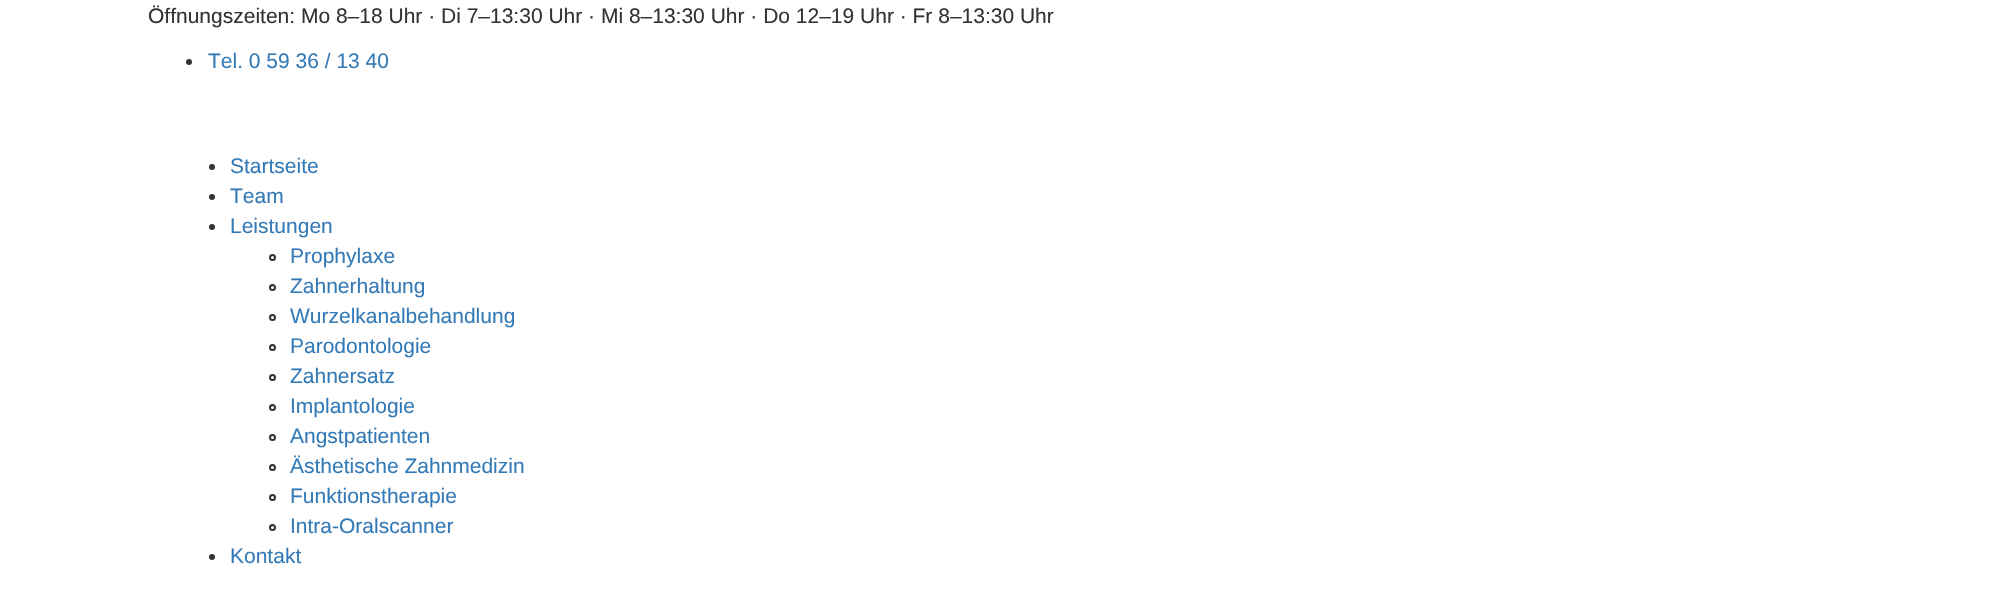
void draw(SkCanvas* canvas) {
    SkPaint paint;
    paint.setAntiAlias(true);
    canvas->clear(0xFFFFFFFF);
    SkFont font1(fontMgr->matchFamilyStyle("Liberation Sans", SkFontStyle::Normal()), 21);
    font1.setSubpixel(true);
    paint.setColor(0xFF333333);
    canvas->drawString("Öffnungszeiten: Mo 8–18 Uhr · Di 7–13:30 Uhr · Mi 8–13:30 Uhr · Do 12–19 Uhr · Fr 8–13:30 Uhr", 148, 23, font1, paint);
    canvas->drawCircle(189, 62, 3, paint);
    paint.setColor(0xFF337AB7);
    canvas->drawString("Tel. 0 59 36 / 13 40", 208, 68, font1, paint);
    paint.setColor(0xFF333333);
    canvas->drawCircle(212, 167, 3, paint);
    paint.setColor(0xFF337AB7);
    canvas->drawString("Startseite", 230, 173, font1, paint);
    paint.setColor(0xFF333333);
    canvas->drawCircle(212, 197, 3, paint);
    paint.setColor(0xFF337AB7);
    canvas->drawString("Team", 230, 203, font1, paint);
    paint.setColor(0xFF333333);
    canvas->drawCircle(212, 227, 3, paint);
    paint.setColor(0xFF337AB7);
    canvas->drawString("Leistungen", 230, 233, font1, paint);
    paint.setStyle(SkPaint::kStroke_Style);
    paint.setStrokeWidth(2);
    paint.setColor(0xFF333333);
    canvas->drawCircle(272.5f, 257.5f, 2.5f, paint);
    paint.setStyle(SkPaint::kFill_Style);
    paint.setColor(0xFF337AB7);
    canvas->drawString("Prophylaxe", 290, 263, font1, paint);
    paint.setStyle(SkPaint::kStroke_Style);
    paint.setColor(0xFF333333);
    canvas->drawCircle(272.5f, 287.5f, 2.5f, paint);
    paint.setStyle(SkPaint::kFill_Style);
    paint.setColor(0xFF337AB7);
    canvas->drawString("Zahnerhaltung", 290, 293, font1, paint);
    paint.setStyle(SkPaint::kStroke_Style);
    paint.setColor(0xFF333333);
    canvas->drawCircle(272.5f, 317.5f, 2.5f, paint);
    paint.setStyle(SkPaint::kFill_Style);
    paint.setColor(0xFF337AB7);
    canvas->drawString("Wurzelkanalbehandlung", 290, 323, font1, paint);
    paint.setStyle(SkPaint::kStroke_Style);
    paint.setColor(0xFF333333);
    canvas->drawCircle(272.5f, 347.5f, 2.5f, paint);
    paint.setStyle(SkPaint::kFill_Style);
    paint.setColor(0xFF337AB7);
    canvas->drawString("Parodontologie", 290, 353, font1, paint);
    paint.setStyle(SkPaint::kStroke_Style);
    paint.setColor(0xFF333333);
    canvas->drawCircle(272.5f, 377.5f, 2.5f, paint);
    paint.setStyle(SkPaint::kFill_Style);
    paint.setColor(0xFF337AB7);
    canvas->drawString("Zahnersatz", 290, 383, font1, paint);
    paint.setStyle(SkPaint::kStroke_Style);
    paint.setColor(0xFF333333);
    canvas->drawCircle(272.5f, 407.5f, 2.5f, paint);
    paint.setStyle(SkPaint::kFill_Style);
    paint.setColor(0xFF337AB7);
    canvas->drawString("Implantologie", 290, 413, font1, paint);
    paint.setStyle(SkPaint::kStroke_Style);
    paint.setColor(0xFF333333);
    canvas->drawCircle(272.5f, 437.5f, 2.5f, paint);
    paint.setStyle(SkPaint::kFill_Style);
    paint.setColor(0xFF337AB7);
    canvas->drawString("Angstpatienten", 290, 443, font1, paint);
    paint.setStyle(SkPaint::kStroke_Style);
    paint.setColor(0xFF333333);
    canvas->drawCircle(272.5f, 467.5f, 2.5f, paint);
    paint.setStyle(SkPaint::kFill_Style);
    paint.setColor(0xFF337AB7);
    canvas->drawString("Ästhetische Zahnmedizin", 290, 473, font1, paint);
    paint.setStyle(SkPaint::kStroke_Style);
    paint.setColor(0xFF333333);
    canvas->drawCircle(272.5f, 497.5f, 2.5f, paint);
    paint.setStyle(SkPaint::kFill_Style);
    paint.setColor(0xFF337AB7);
    canvas->drawString("Funktionstherapie", 290, 503, font1, paint);
    paint.setStyle(SkPaint::kStroke_Style);
    paint.setColor(0xFF333333);
    canvas->drawCircle(272.5f, 527.5f, 2.5f, paint);
    paint.setStyle(SkPaint::kFill_Style);
    paint.setColor(0xFF337AB7);
    canvas->drawString("Intra-Oralscanner", 290, 533, font1, paint);
    paint.setColor(0xFF333333);
    canvas->drawCircle(212, 557, 3, paint);
    paint.setColor(0xFF337AB7);
    canvas->drawString("Kontakt", 230, 563, font1, paint);
}
